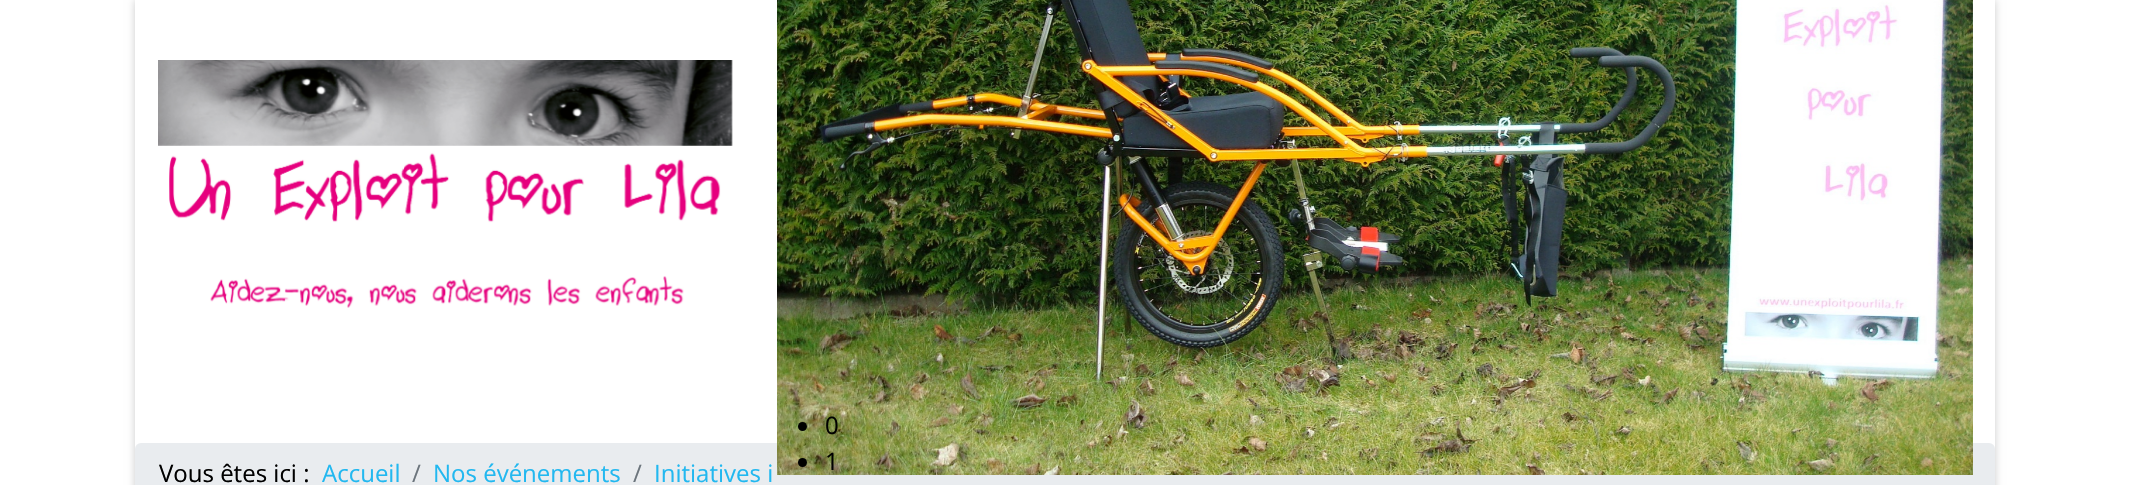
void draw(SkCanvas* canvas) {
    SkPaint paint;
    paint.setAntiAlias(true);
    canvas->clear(0xFFFFFFFF);
    canvas->save();
    canvas->clipPath(SkPathBuilder(SkPathFillType::kEvenOdd).moveTo(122, 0).lineTo(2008, 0).lineTo(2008, 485).lineTo(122, 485).close().moveTo(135, 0).lineTo(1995, 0).lineTo(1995, 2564).lineTo(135, 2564).close().detach(), true);
    paint.setColor(0x33000000);
    paint.setMaskFilter(SkMaskFilter::MakeBlur(kNormal_SkBlurStyle, 4));
    canvas->drawRect(SkRect::MakeXYWH(135, 0, 1860, 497), paint);
    paint.setMaskFilter(nullptr);
    canvas->restore();
    canvas->drawImageRect(SkImages::DeferredFromEncodedData(SkData::MakeFromFileName("img1.png")), SkRect::MakeXYWH(158, 60, 575, 248), SkSamplingOptions());
    paint.setColor(0xFFE9ECEF);
    canvas->drawRoundRect(SkRect::MakeXYWH(135, 443, 1860, 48), 6, 6, paint);
    canvas->drawImageRect(SkImages::DeferredFromEncodedData(SkData::MakeFromFileName("img2.png")), SkRect::MakeXYWH(777, 0, 1196, 475), SkSamplingOptions());
    paint.setColor(0xFF000000);
    canvas->drawCircle(802.5f, 426.5f, 4.5f, paint);
    SkFont font1(fontMgr->matchFamilyStyle("Open Sans", SkFontStyle::Normal()), 24);
    font1.setSubpixel(true);
    canvas->drawString("0", 825, 434, font1, paint);
    canvas->drawCircle(802.5f, 462.5f, 4.5f, paint);
    canvas->drawString("1", 825, 470, font1, paint);
    canvas->drawString("Vous êtes ici :", 159, 482, font1, paint);
    paint.setColor(0xFF22B8F0);
    canvas->drawString("Accueil", 322, 482, font1, paint);
    paint.setColor(0xFF6C757D);
    canvas->drawString("/", 412, 482, font1, paint);
    paint.setColor(0xFF22B8F0);
    canvas->drawString("Nos événements", 433, 482, font1, paint);
    paint.setColor(0xFF6C757D);
    canvas->drawString("/", 633, 482, font1, paint);
    paint.setColor(0xFF22B8F0);
    canvas->drawString("Initiatives i", 654, 482, font1, paint);
}
